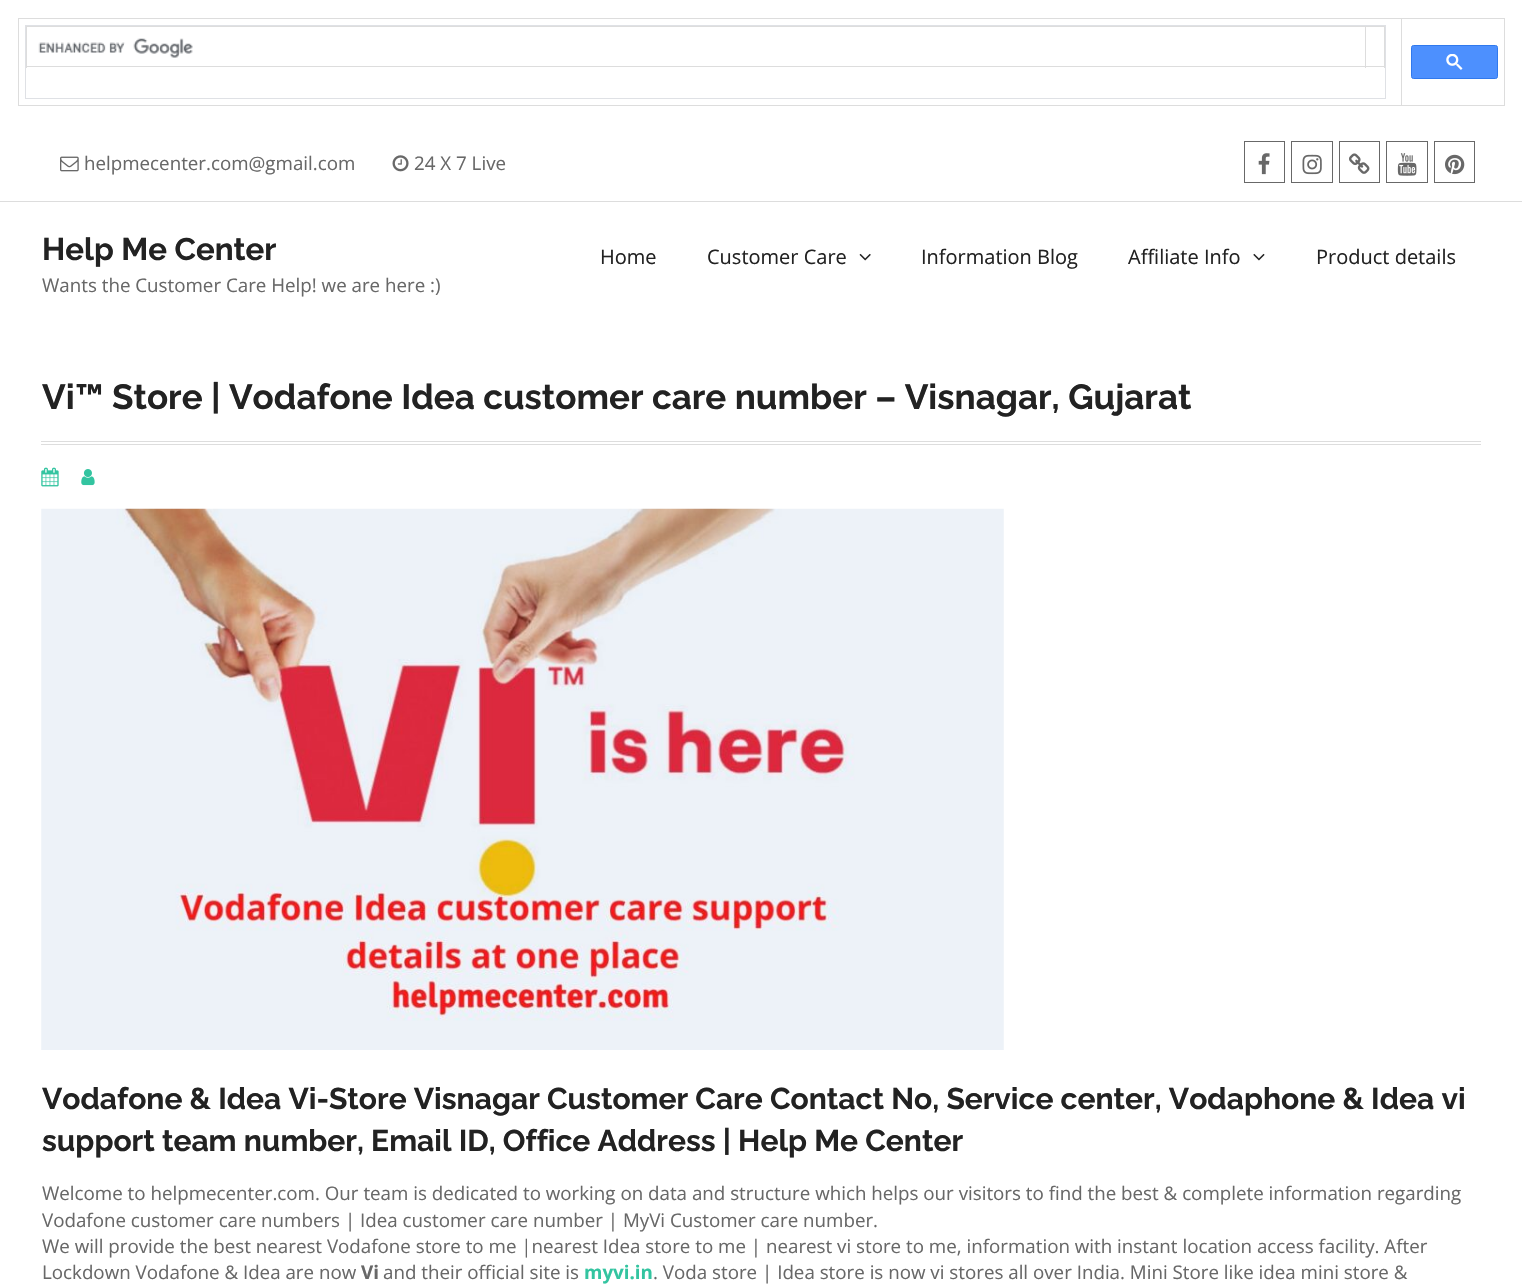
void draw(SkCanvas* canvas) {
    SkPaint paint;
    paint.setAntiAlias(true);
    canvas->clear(0xFFFFFFFF);
    paint.setColor(0xFFDDDDDD);
    canvas->drawRect(SkRect::MakeXYWH(1401, 18, 104, 1), paint);
    canvas->drawRect(SkRect::MakeXYWH(1504, 18, 1, 88), paint);
    canvas->drawRect(SkRect::MakeXYWH(1401, 105, 104, 1), paint);
    canvas->drawRect(SkRect::MakeXYWH(1401, 18, 1, 88), paint);
    canvas->drawRect(SkRect::MakeXYWH(18, 18, 1385, 1), paint);
    canvas->drawRect(SkRect::MakeXYWH(18, 105, 1385, 1), paint);
    canvas->drawRect(SkRect::MakeXYWH(18, 18, 1, 88), paint);
    paint.setStyle(SkPaint::kStroke_Style);
    paint.setStrokeWidth(1);
    paint.setColor(0xFFDFE1E5);
    canvas->drawRect(SkRect::MakeXYWH(25.5f, 25.5f, 1360, 73), paint);
    paint.setStyle(SkPaint::kFill_Style);
    paint.setColor(0xFFDDDDDD);
    canvas->drawRect(SkRect::MakeXYWH(1365, 26, 20, 1), paint);
    canvas->drawRect(SkRect::MakeXYWH(1384, 26, 1, 42), paint);
    canvas->drawRect(SkRect::MakeXYWH(1365, 66, 20, 1), paint);
    canvas->drawRect(SkRect::MakeXYWH(1365, 26, 1, 42), paint);
    canvas->drawRect(SkRect::MakeXYWH(26, 26, 1340, 1), paint);
    canvas->drawRect(SkRect::MakeXYWH(26, 66, 1340, 1), paint);
    canvas->drawRect(SkRect::MakeXYWH(26, 26, 1, 42), paint);
    canvas->drawImageRect(SkImages::DeferredFromEncodedData(SkData::MakeFromFileName("img1.png")), SkRect::MakeXYWH(38, 38, 155, 20), SkSamplingOptions());
    paint.setColor(0xFF4D90FE);
    canvas->drawRoundRect(SkRect::MakeXYWH(1411.5f, 45.5f, 86, 33), 2, 2, paint);
    paint.setStyle(SkPaint::kStroke_Style);
    paint.setColor(0xFF3079ED);
    canvas->drawRoundRect(SkRect::MakeXYWH(1411.5f, 45.5f, 86, 33), 2, 2, paint);
    canvas->drawImageRect(SkImages::DeferredFromEncodedData(SkData::MakeFromFileName("img2.png")), SkRect::MakeXYWH(1446, 54, 17, 16), SkSamplingOptions());
    paint.setStyle(SkPaint::kFill_Style);
    paint.setColor(0xFFDDDDDD);
    canvas->drawRect(SkRect::MakeXYWH(0, 201, 1522, 1), paint);
    canvas->drawImageRect(SkImages::DeferredFromEncodedData(SkData::MakeFromFileName("img3.png")), SkRect::MakeXYWH(60, 156, 19, 16), SkSamplingOptions());
    SkFont font1(fontMgr->matchFamilyStyle("Open Sans", SkFontStyle::Normal()), 18.75f);
    font1.setSubpixel(true);
    paint.setColor(0xFF686868);
    canvas->drawString("helpmecenter.com@gmail.com", 84, 170, font1, paint);
    canvas->drawImageRect(SkImages::DeferredFromEncodedData(SkData::MakeFromFileName("img4.png")), SkRect::MakeXYWH(392, 155, 17, 17), SkSamplingOptions());
    canvas->drawString("24 X 7 Live", 414, 170, font1, paint);
    paint.setStyle(SkPaint::kStroke_Style);
    canvas->drawRect(SkRect::MakeXYWH(1244.5f, 141.5f, 40, 41), paint);
    canvas->drawImageRect(SkImages::DeferredFromEncodedData(SkData::MakeFromFileName("img5.png")), SkRect::MakeXYWH(1258, 153, 12, 22), SkSamplingOptions());
    canvas->drawRect(SkRect::MakeXYWH(1291.5f, 141.5f, 41, 41), paint);
    canvas->drawImageRect(SkImages::DeferredFromEncodedData(SkData::MakeFromFileName("img6.png")), SkRect::MakeXYWH(1302, 154, 20, 21), SkSamplingOptions());
    canvas->drawRect(SkRect::MakeXYWH(1339.5f, 141.5f, 40, 41), paint);
    canvas->drawImageRect(SkImages::DeferredFromEncodedData(SkData::MakeFromFileName("img7.png")), SkRect::MakeXYWH(1349, 153, 21, 21), SkSamplingOptions());
    canvas->drawRect(SkRect::MakeXYWH(1386.5f, 141.5f, 41, 41), paint);
    canvas->drawImageRect(SkImages::DeferredFromEncodedData(SkData::MakeFromFileName("img8.png")), SkRect::MakeXYWH(1397, 153, 20, 23), SkSamplingOptions());
    canvas->drawRect(SkRect::MakeXYWH(1434.5f, 141.5f, 40, 41), paint);
    canvas->drawImageRect(SkImages::DeferredFromEncodedData(SkData::MakeFromFileName("img9.png")), SkRect::MakeXYWH(1445, 154, 20, 21), SkSamplingOptions());
    SkFont font2(fontMgr->matchFamilyStyle("Raleway", SkFontStyle::Bold()), 31.25f);
    font2.setSubpixel(true);
    paint.setStyle(SkPaint::kFill_Style);
    paint.setColor(0xFF222222);
    canvas->drawString("Help Me Center", 42, 260, font2, paint);
    paint.setColor(0xFF686868);
    canvas->drawString("Wants the Customer Care Help! we are here :)", 42, 292, font1, paint);
    SkFont font3(fontMgr->matchFamilyStyle("Open Sans", SkFontStyle::Normal()), 20);
    font3.setSubpixel(true);
    paint.setColor(0xFF222222);
    canvas->drawString("Home", 600, 264, font3, paint);
    canvas->drawString("Customer Care", 707, 264, font3, paint);
    canvas->drawImageRect(SkImages::DeferredFromEncodedData(SkData::MakeFromFileName("img10.png")), SkRect::MakeXYWH(859, 253, 12, 8), SkSamplingOptions());
    canvas->drawString("Information Blog", 921, 264, font3, paint);
    canvas->drawString("Affiliate Info", 1128, 264, font3, paint);
    canvas->drawImageRect(SkImages::DeferredFromEncodedData(SkData::MakeFromFileName("img11.png")), SkRect::MakeXYWH(1253, 253, 12, 8), SkSamplingOptions());
    canvas->drawString("Product details", 1316, 264, font3, paint);
    paint.setColor(0xFFDDDDDD);
    canvas->drawRect(SkRect::MakeXYWH(41, 441, 1440, 1), paint);
    canvas->drawRect(SkRect::MakeXYWH(41, 444, 1440, 1), paint);
    SkFont font4(fontMgr->matchFamilyStyle("Raleway", SkFontStyle::Bold()), 35);
    font4.setSubpixel(true);
    paint.setColor(0xFF222222);
    canvas->drawString("Vi™ Store | Vodafone Idea customer care number – Visnagar, Gujarat", 42, 409, font4, paint);
    canvas->drawImageRect(SkImages::DeferredFromEncodedData(SkData::MakeFromFileName("img12.png")), SkRect::MakeXYWH(41, 467, 18, 20), SkSamplingOptions());
    canvas->drawImageRect(SkImages::DeferredFromEncodedData(SkData::MakeFromFileName("img13.png")), SkRect::MakeXYWH(81, 469, 14, 17), SkSamplingOptions());
    canvas->drawImageRect(SkImages::DeferredFromEncodedData(SkData::MakeFromFileName("img14.png")), SkRect::MakeXYWH(41, 508, 963, 542), SkSamplingOptions());
    SkFont font5(fontMgr->matchFamilyStyle("Raleway", SkFontStyle::Bold()), 30);
    font5.setSubpixel(true);
    canvas->drawString("Vodafone & Idea Vi-Store Visnagar Customer Care Contact No, Service center, Vodaphone & Idea vi", 42, 1109, font5, paint);
    canvas->drawString("support team number, Email ID, Office Address | Help Me Center", 42, 1151, font5, paint);
    paint.setColor(0xFF686868);
    canvas->drawString("Welcome to helpmecenter.com. Our team is dedicated to working on data and structure which helps our visitors to find the best & complete information regarding", 42, 1200, font1, paint);
    canvas->drawString("Vodafone customer care numbers | Idea customer care number | MyVi Customer care number.", 42, 1227, font1, paint);
    canvas->drawString("We will provide the best nearest Vodafone store to me |nearest Idea store to me | nearest vi store to me, information with instant location access facility. After", 42, 1253, font1, paint);
    canvas->drawString("Lockdown Vodafone & Idea are now", 42, 1279, font1, paint);
    SkFont font6(fontMgr->matchFamilyStyle("Open Sans", SkFontStyle::Bold()), 18.75f);
    font6.setSubpixel(true);
    canvas->drawString("Vi", 361, 1279, font6, paint);
    canvas->drawString("and their official site is", 383, 1279, font1, paint);
    paint.setColor(0xFF33C4A0);
    canvas->drawString("myvi.in", 584, 1279, font6, paint);
    paint.setColor(0xFF686868);
    canvas->drawString(". Voda store | Idea store is now vi stores all over India. Mini Store like idea mini store &", 653, 1279, font1, paint);
}
